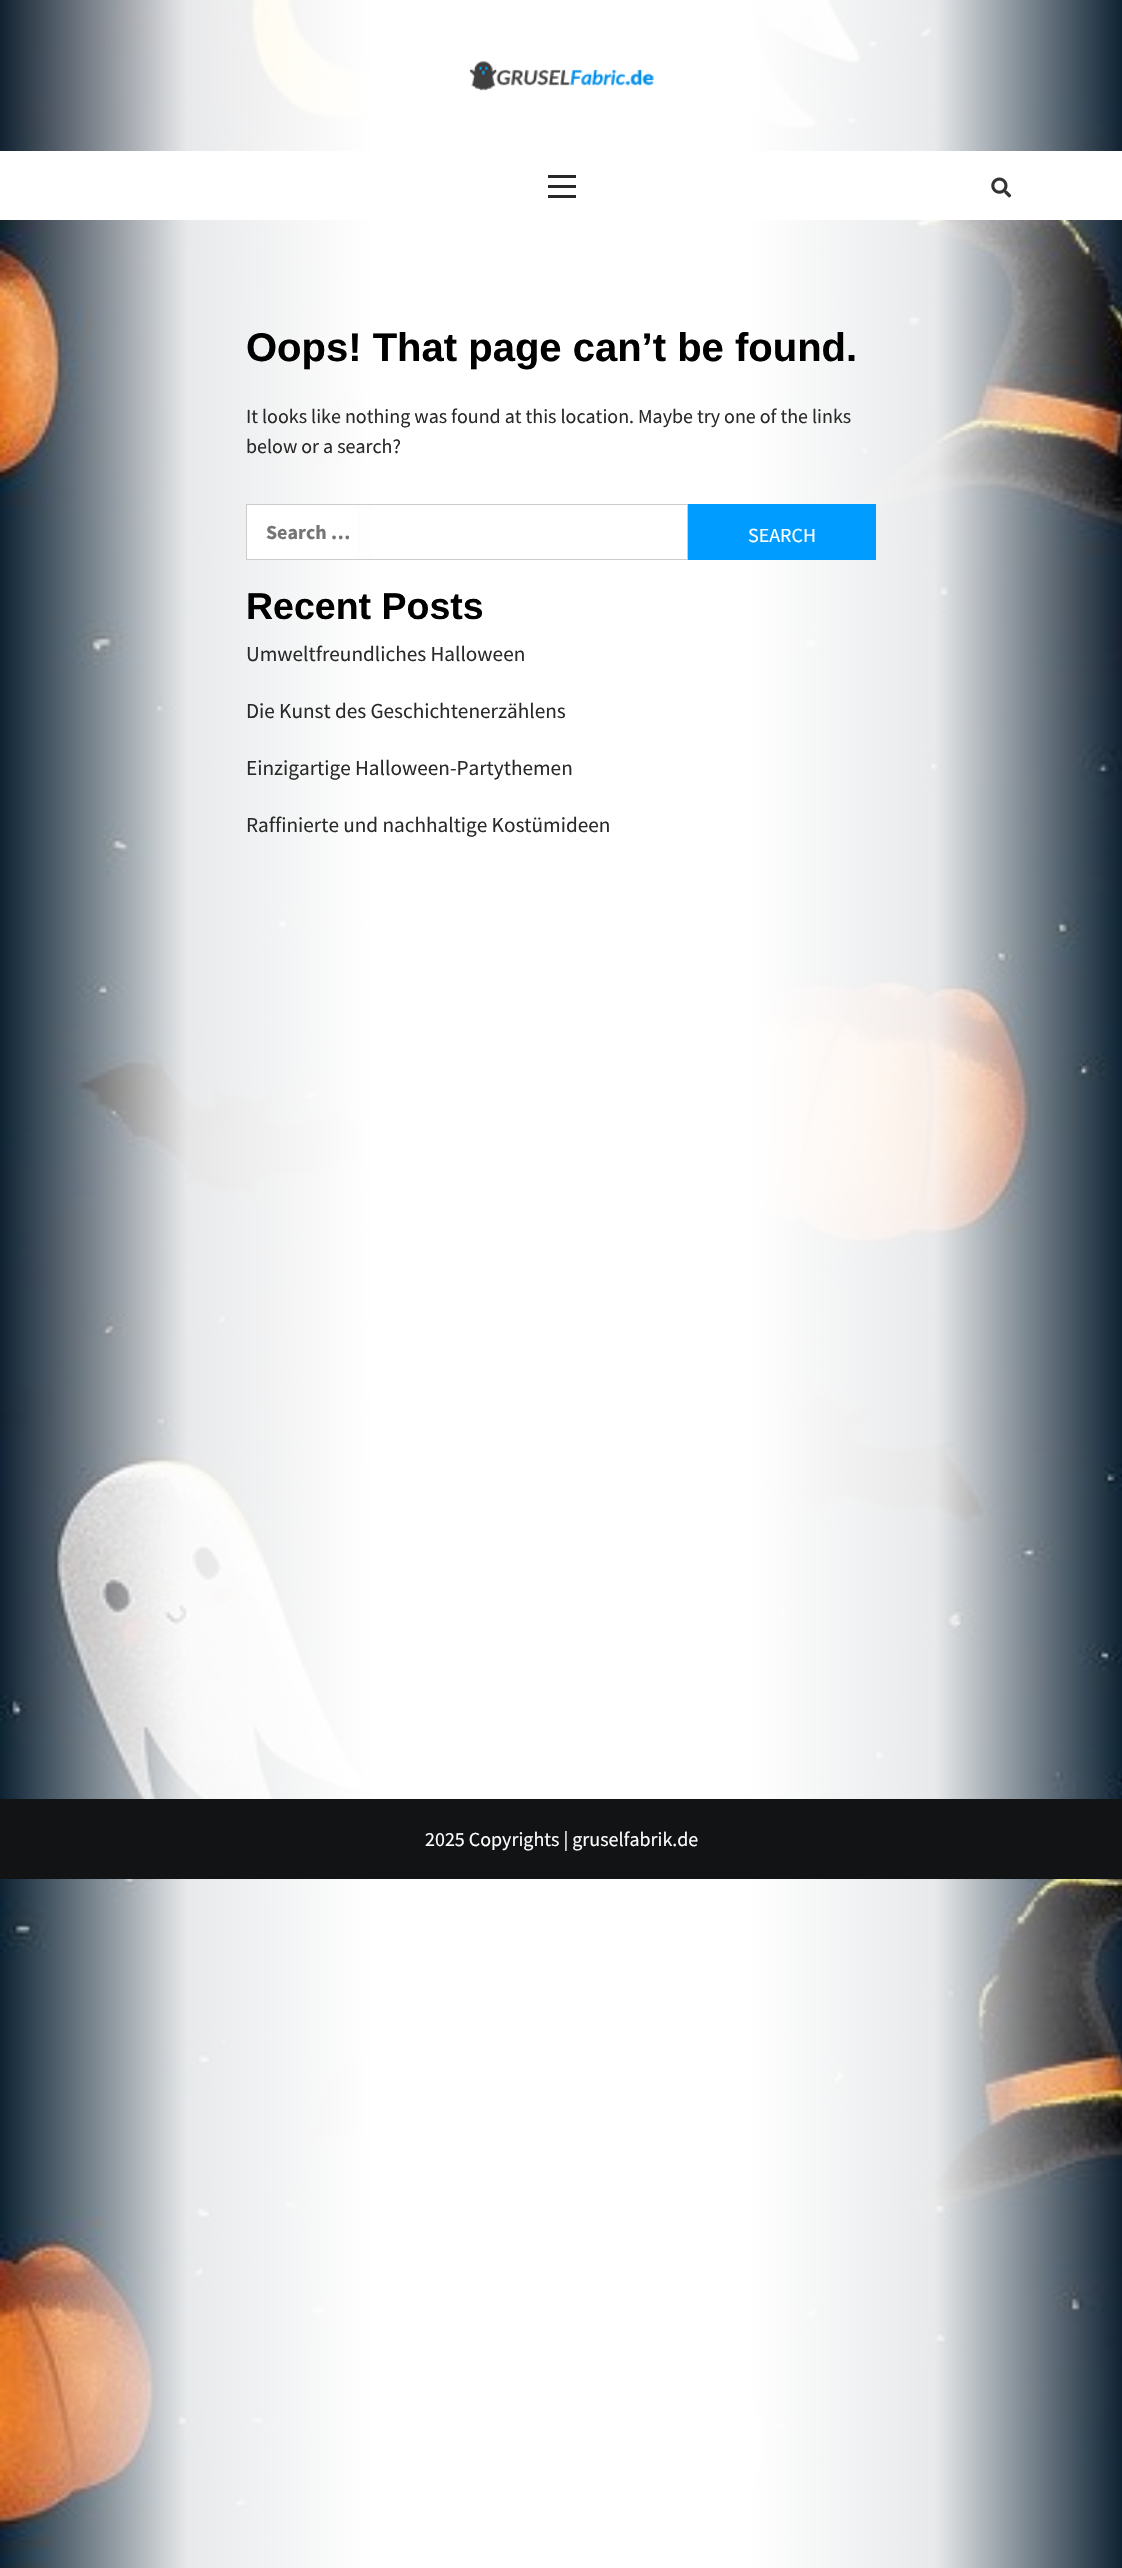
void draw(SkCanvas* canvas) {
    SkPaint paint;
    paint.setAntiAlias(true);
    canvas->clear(0xFFFFFFFF);
    canvas->drawImageRect(SkImages::DeferredFromEncodedData(SkData::MakeFromFileName("img1.png")), SkRect::MakeXYWH(0, 0, 1122, 2568), SkSamplingOptions());
    canvas->drawImageRect(SkImages::DeferredFromEncodedData(SkData::MakeFromFileName("img2.png")), SkRect::MakeXYWH(469, 61, 185, 30), SkSamplingOptions());
    paint.setColor(0xFFFFFFFF);
    canvas->drawRect(SkRect::MakeXYWH(0, 151, 1122, 69), paint);
    paint.setColor(0xFF282828);
    canvas->drawRect(SkRect::MakeXYWH(548, 185, 28, 3), paint);
    canvas->drawRect(SkRect::MakeXYWH(548, 175, 28, 3), paint);
    canvas->drawRect(SkRect::MakeXYWH(548, 195, 28, 3), paint);
    canvas->drawImageRect(SkImages::DeferredFromEncodedData(SkData::MakeFromFileName("img3.png")), SkRect::MakeXYWH(991, 177, 21, 21), SkSamplingOptions());
    SkFont font1(fontMgr->matchFamilyStyle("Liberation Sans", SkFontStyle::Bold()), 40);
    font1.setSubpixel(true);
    paint.setColor(0xFF000000);
    canvas->drawString("Oops! That page can’t be found.", 246, 361, font1, paint);
    SkFont font2(fontMgr->matchFamilyStyle("Source Sans Pro", SkFontStyle::Normal()), 20);
    font2.setSubpixel(true);
    paint.setColor(0xFF2A2A2A);
    canvas->drawString("It looks like nothing was found at this location. Maybe try one of the links", 246, 423, font2, paint);
    canvas->drawString("below or a search?", 246, 453, font2, paint);
    paint.setColor(0xFFFFFFFF);
    canvas->drawRect(SkRect::MakeXYWH(247, 505, 110, 54), paint);
    paint.setStyle(SkPaint::kStroke_Style);
    paint.setStrokeWidth(1);
    paint.setColor(0xFFCCCCCC);
    canvas->drawRect(SkRect::MakeXYWH(246.5f, 504.5f, 441, 55), paint);
    SkFont font3(fontMgr->matchFamilyStyle("Source Sans Pro", SkFontStyle::Bold()), 20);
    font3.setSubpixel(true);
    paint.setStyle(SkPaint::kFill_Style);
    paint.setColor(0xFF757575);
    canvas->drawString("Search …", 266, 539, font3, paint);
    paint.setColor(0xFF009CFF);
    canvas->drawRect(SkRect::MakeXYWH(688, 504, 188, 56), paint);
    paint.setColor(0xFFFFFFFF);
    canvas->drawString("SEARCH", 748, 542, font2, paint);
    SkFont font4(fontMgr->matchFamilyStyle("Liberation Sans", SkFontStyle::Bold()), 37.5f);
    font4.setSubpixel(true);
    paint.setColor(0xFF000000);
    canvas->drawString("Recent Posts", 246, 619, font4, paint);
    SkFont font5(fontMgr->matchFamilyStyle("Source Sans Pro", SkFontStyle::Normal()), 21.25f);
    font5.setSubpixel(true);
    paint.setColor(0xFF2A2A2A);
    canvas->drawString("Umweltfreundliches Halloween", 246, 661, font5, paint);
    canvas->drawString("Die Kunst des Geschichtenerzählens", 246, 718, font5, paint);
    canvas->drawString("Einzigartige Halloween-Partythemen", 246, 775, font5, paint);
    canvas->drawString("Raffinierte und nachhaltige Kostümideen", 246, 832, font5, paint);
    paint.setColor(0xFF121314);
    canvas->drawRect(SkRect::MakeXYWH(0, 1799, 1122, 80), paint);
    paint.setColor(0xFFFFFFFF);
    canvas->drawString("2025 Copyrights | gruselfabrik.de", 425, 1846, font2, paint);
}
